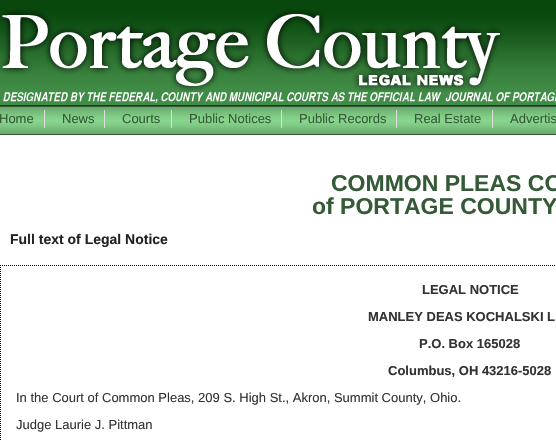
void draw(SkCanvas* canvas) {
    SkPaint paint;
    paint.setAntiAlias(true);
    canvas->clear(0xFFFFFFFF);
    canvas->drawImageRect(SkImages::DeferredFromEncodedData(SkData::MakeFromFileName("img1.png")), SkRect::MakeXYWH(0, 0, 556, 106), SkSamplingOptions());
    canvas->drawImageRect(SkImages::DeferredFromEncodedData(SkData::MakeFromFileName("img2.png")), SkRect::MakeXYWH(0, 9, 556, 94), SkSamplingOptions());
    canvas->drawImageRect(SkImages::DeferredFromEncodedData(SkData::MakeFromFileName("img3.png")), SkRect::MakeXYWH(0, 106, 556, 29), SkSamplingOptions());
    SkFont font1(fontMgr->matchFamilyStyle("Liberation Sans", SkFontStyle::Normal()), 13);
    font1.setSubpixel(true);
    paint.setColor(0xFF355A38);
    canvas->drawString("Home", -1, 123, font1, paint);
    paint.setColor(0xFFDDDDDD);
    canvas->drawRect(SkRect::MakeXYWH(44, 110, 1, 18), paint);
    paint.setColor(0xFF355A38);
    canvas->drawString("News", 62, 123, font1, paint);
    paint.setColor(0xFFDDDDDD);
    canvas->drawRect(SkRect::MakeXYWH(104, 110, 1, 18), paint);
    paint.setColor(0xFF355A38);
    canvas->drawString("Courts", 122, 123, font1, paint);
    paint.setColor(0xFFDDDDDD);
    canvas->drawRect(SkRect::MakeXYWH(171, 110, 1, 18), paint);
    paint.setColor(0xFF355A38);
    canvas->drawString("Public Notices", 189, 123, font1, paint);
    paint.setColor(0xFFDDDDDD);
    canvas->drawRect(SkRect::MakeXYWH(281, 110, 1, 18), paint);
    paint.setColor(0xFF355A38);
    canvas->drawString("Public Records", 299, 123, font1, paint);
    paint.setColor(0xFFDDDDDD);
    canvas->drawRect(SkRect::MakeXYWH(396, 110, 1, 18), paint);
    paint.setColor(0xFF355A38);
    canvas->drawString("Real Estate", 414, 123, font1, paint);
    paint.setColor(0xFFDDDDDD);
    canvas->drawRect(SkRect::MakeXYWH(492, 110, 1, 18), paint);
    paint.setColor(0xFF355A38);
    canvas->drawString("Advertis", 510, 123, font1, paint);
    SkFont font2(fontMgr->matchFamilyStyle("Liberation Sans", SkFontStyle::Bold()), 23);
    font2.setSubpixel(true);
    canvas->drawString("COMMON PLEAS CO", 331, 191, font2, paint);
    canvas->drawString("of PORTAGE COUNTY", 312, 214, font2, paint);
    SkFont font3(fontMgr->matchFamilyStyle("Liberation Sans", SkFontStyle::Bold()), 14);
    font3.setSubpixel(true);
    paint.setColor(0xFF222222);
    canvas->drawString("Full text of Legal Notice", 10, 244, font3, paint);
    paint.setStyle(SkPaint::kStroke_Style);
    paint.setStrokeWidth(1);
    paint.setColor(0xFF000000);
    paint.setPathEffect(SkDashPathEffect::Make({{1, 1}}, 0));
    canvas->drawPath(SkPathBuilder().moveTo(0, 265.5f).lineTo(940, 265.5f).detach(), paint);
    paint.setPathEffect(nullptr);
    paint.setPathEffect(SkDashPathEffect::Make({{1, 1}}, 0));
    canvas->drawPath(SkPathBuilder().moveTo(0.5f, 265).lineTo(0.5f, 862).detach(), paint);
    paint.setPathEffect(nullptr);
    SkFont font4(fontMgr->matchFamilyStyle("Liberation Sans", SkFontStyle::Bold()), 13);
    font4.setSubpixel(true);
    paint.setStyle(SkPaint::kFill_Style);
    paint.setColor(0xFF333333);
    canvas->drawString("LEGAL NOTICE", 422, 294, font4, paint);
    canvas->drawString("MANLEY DEAS KOCHALSKI L", 368, 321, font4, paint);
    canvas->drawString("P.O. Box 165028", 419, 348, font4, paint);
    canvas->drawString("Columbus, OH 43216-5028", 388, 375, font4, paint);
    canvas->drawString("In the Court of Common Pleas, 209 S. High St., Akron, Summit County, Ohio.", 16, 402, font1, paint);
    canvas->drawString("Judge Laurie J. Pittman", 16, 429, font1, paint);
}
